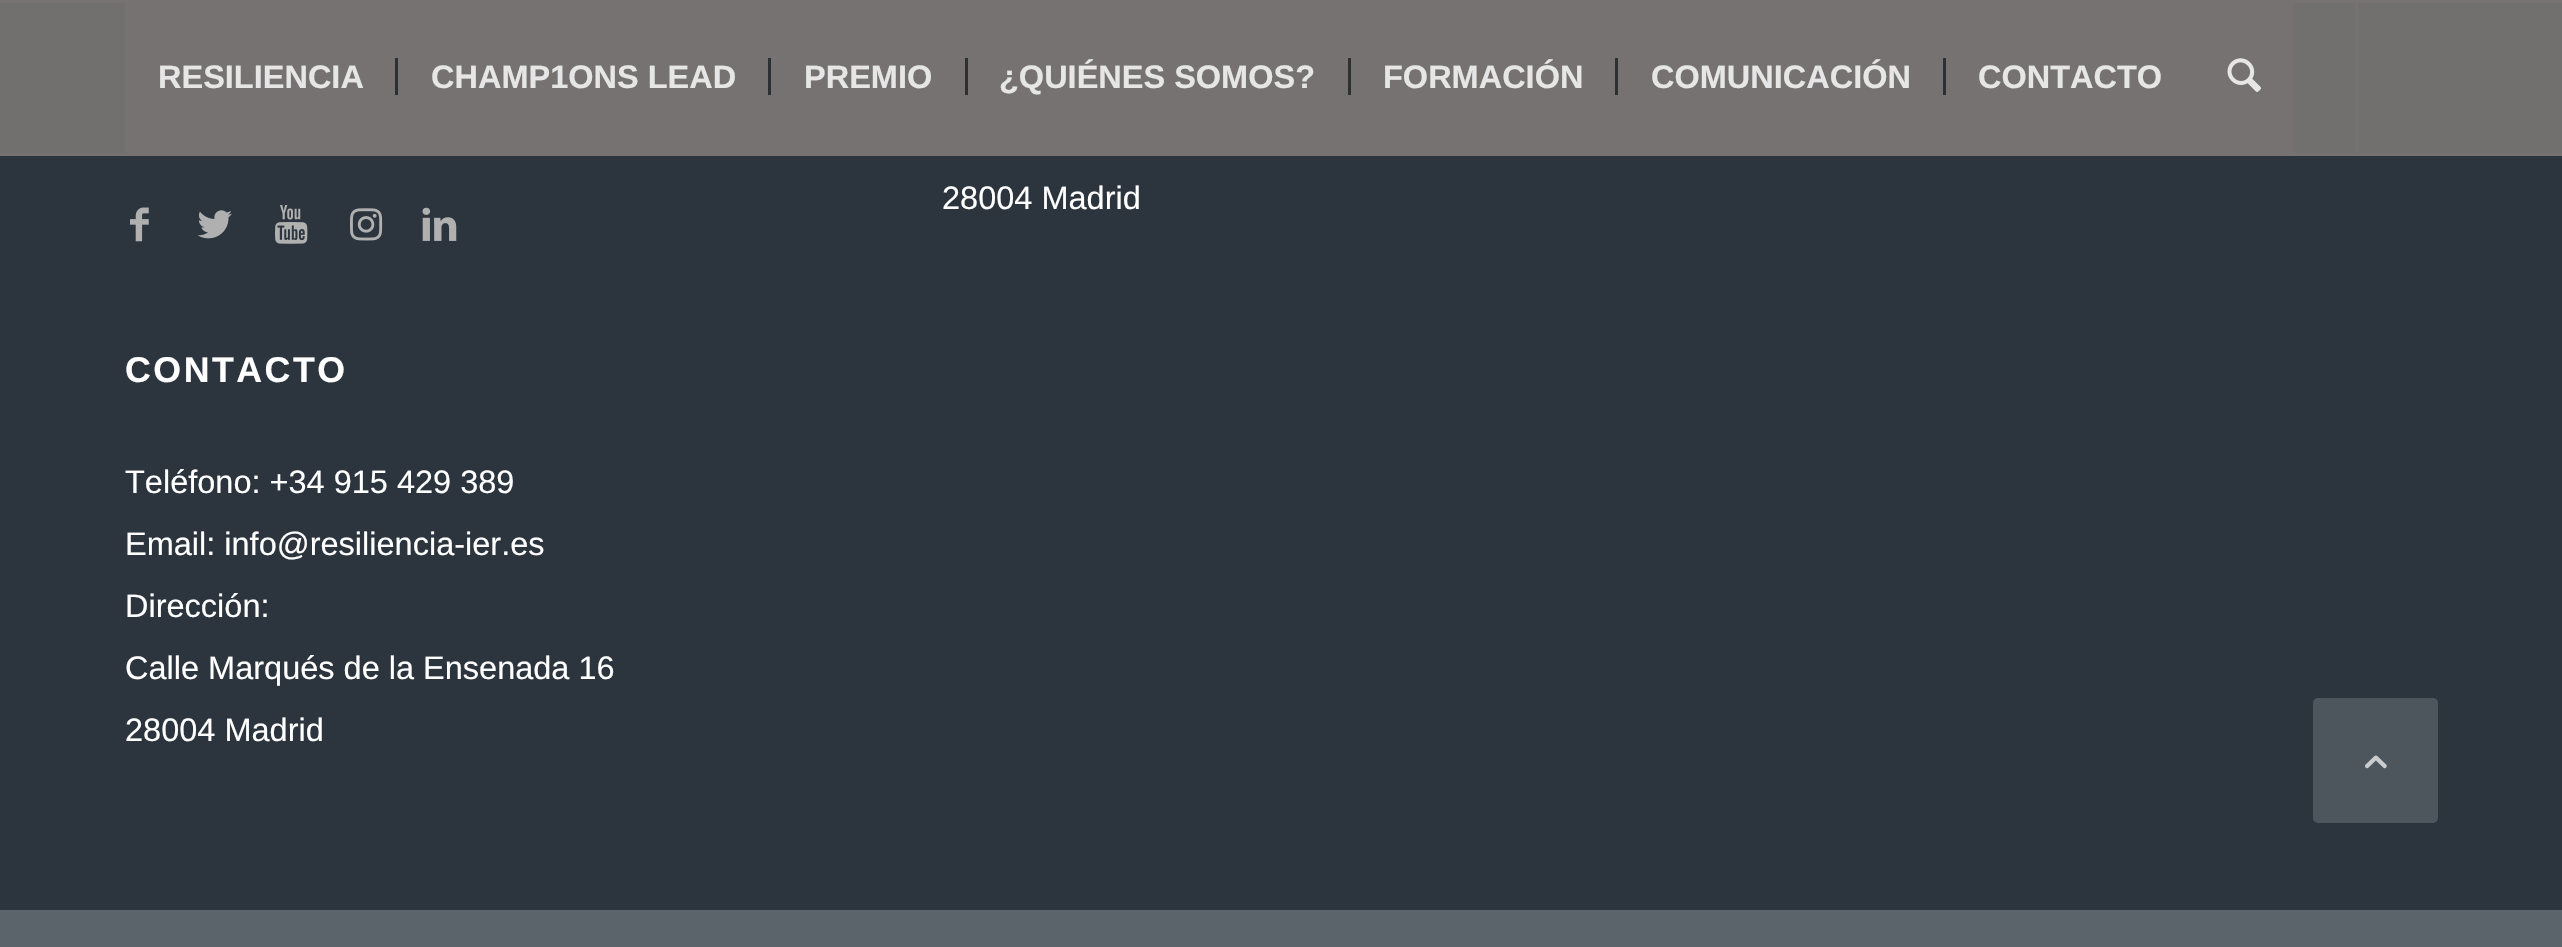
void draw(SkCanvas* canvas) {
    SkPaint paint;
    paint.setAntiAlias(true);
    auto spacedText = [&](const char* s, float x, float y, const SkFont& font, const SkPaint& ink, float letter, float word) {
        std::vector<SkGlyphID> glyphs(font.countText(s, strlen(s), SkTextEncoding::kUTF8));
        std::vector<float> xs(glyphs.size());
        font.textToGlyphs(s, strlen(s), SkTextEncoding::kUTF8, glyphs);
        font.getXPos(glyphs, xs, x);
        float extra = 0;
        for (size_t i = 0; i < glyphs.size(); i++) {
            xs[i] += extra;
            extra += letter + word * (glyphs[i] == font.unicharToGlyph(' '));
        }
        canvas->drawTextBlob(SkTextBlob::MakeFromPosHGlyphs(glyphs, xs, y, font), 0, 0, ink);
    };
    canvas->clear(0xFF2C353D);
    paint.setColor(0xFF767272);
    canvas->drawRect(SkRect::MakeXYWH(0, 0, 2562, 3), paint);
    canvas->drawRect(SkRect::MakeXYWH(0, 153, 2562, 3), paint);
    paint.setColor(0xFF726F6F);
    canvas->drawRect(SkRect::MakeXYWH(0, 3, 2562, 150), paint);
    paint.setColor(0xFF767272);
    canvas->drawRect(SkRect::MakeXYWH(2355, 3, 3, 150), paint);
    canvas->drawRect(SkRect::MakeXYWH(125, 3, 2168, 150), paint);
    SkFont font1(fontMgr->matchFamilyStyle("Liberation Sans", SkFontStyle::Bold()), 32.5f);
    font1.setSubpixel(true);
    paint.setColor(0xFFE6E6E6);
    canvas->drawString("RESILIENCIA", 158, 88, font1, paint);
    canvas->drawString("CHAMP1ONS LEAD", 431, 88, font1, paint);
    paint.setColor(0xFF2C3033);
    canvas->drawRect(SkRect::MakeXYWH(395, 58, 3, 37), paint);
    paint.setColor(0xFFE6E6E6);
    canvas->drawString("PREMIO", 804, 88, font1, paint);
    paint.setColor(0xFF2C3033);
    canvas->drawRect(SkRect::MakeXYWH(768, 58, 3, 37), paint);
    paint.setColor(0xFFE6E6E6);
    canvas->drawString("¿QUIÉNES SOMOS?", 999, 88, font1, paint);
    paint.setColor(0xFF2C3033);
    canvas->drawRect(SkRect::MakeXYWH(965, 58, 3, 37), paint);
    paint.setColor(0xFFE6E6E6);
    canvas->drawString("FORMACIÓN", 1383, 88, font1, paint);
    paint.setColor(0xFF2C3033);
    canvas->drawRect(SkRect::MakeXYWH(1348, 58, 3, 37), paint);
    paint.setColor(0xFFE6E6E6);
    canvas->drawString("COMUNICACIÓN", 1651, 88, font1, paint);
    paint.setColor(0xFF2C3033);
    canvas->drawRect(SkRect::MakeXYWH(1615, 58, 3, 37), paint);
    paint.setColor(0xFFE6E6E6);
    canvas->drawString("CONTACTO", 1978, 88, font1, paint);
    paint.setColor(0xFF2C3033);
    canvas->drawRect(SkRect::MakeXYWH(1943, 58, 3, 37), paint);
    canvas->drawImageRect(SkImages::DeferredFromEncodedData(SkData::MakeFromFileName("img1.png")), SkRect::MakeXYWH(2227, 58, 34, 34), SkSamplingOptions());
    canvas->drawImageRect(SkImages::DeferredFromEncodedData(SkData::MakeFromFileName("img2.png")), SkRect::MakeXYWH(130, 207, 19, 35), SkSamplingOptions());
    canvas->drawImageRect(SkImages::DeferredFromEncodedData(SkData::MakeFromFileName("img3.png")), SkRect::MakeXYWH(197, 210, 35, 29), SkSamplingOptions());
    canvas->drawImageRect(SkImages::DeferredFromEncodedData(SkData::MakeFromFileName("img4.png")), SkRect::MakeXYWH(275, 205, 33, 39), SkSamplingOptions());
    canvas->drawImageRect(SkImages::DeferredFromEncodedData(SkData::MakeFromFileName("img5.png")), SkRect::MakeXYWH(350, 208, 33, 33), SkSamplingOptions());
    canvas->drawImageRect(SkImages::DeferredFromEncodedData(SkData::MakeFromFileName("img6.png")), SkRect::MakeXYWH(422, 207, 35, 34), SkSamplingOptions());
    SkFont font2(fontMgr->matchFamilyStyle("Liberation Sans", SkFontStyle::Normal()), 32.5f);
    font2.setSubpixel(true);
    paint.setColor(0xFFFFFFFF);
    canvas->drawString("28004 Madrid", 942, 209, font2, paint);
    SkFont font3(fontMgr->matchFamilyStyle("Liberation Sans", SkFontStyle::Bold()), 35.75f);
    font3.setSubpixel(true);
    spacedText("CONTACTO", 125, 382, font3, paint, 2.5f, 0);
    canvas->drawString("Teléfono: +34 915 429 389", 125, 493, font2, paint);
    canvas->drawString("Email: info@resiliencia-ier.es", 125, 555, font2, paint);
    canvas->drawString("Dirección:", 125, 617, font2, paint);
    canvas->drawString("Calle Marqués de la Ensenada 16", 125, 679, font2, paint);
    canvas->drawString("28004 Madrid", 125, 741, font2, paint);
    paint.setColor(0xFF5B646B);
    canvas->drawRect(SkRect::MakeXYWH(0, 910, 2562, 37), paint);
    paint.setColor(0xFF4D565D);
    canvas->drawRoundRect(SkRect::MakeXYWH(2314.5f, 699.5f, 122, 122), 3.5f, 3.5f, paint);
    paint.setStyle(SkPaint::kStroke_Style);
    paint.setStrokeWidth(3);
    canvas->drawRoundRect(SkRect::MakeXYWH(2314.5f, 699.5f, 122, 122), 3.5f, 3.5f, paint);
    canvas->drawImageRect(SkImages::DeferredFromEncodedData(SkData::MakeFromFileName("img7.png")), SkRect::MakeXYWH(2365, 755, 22, 14), SkSamplingOptions());
}
